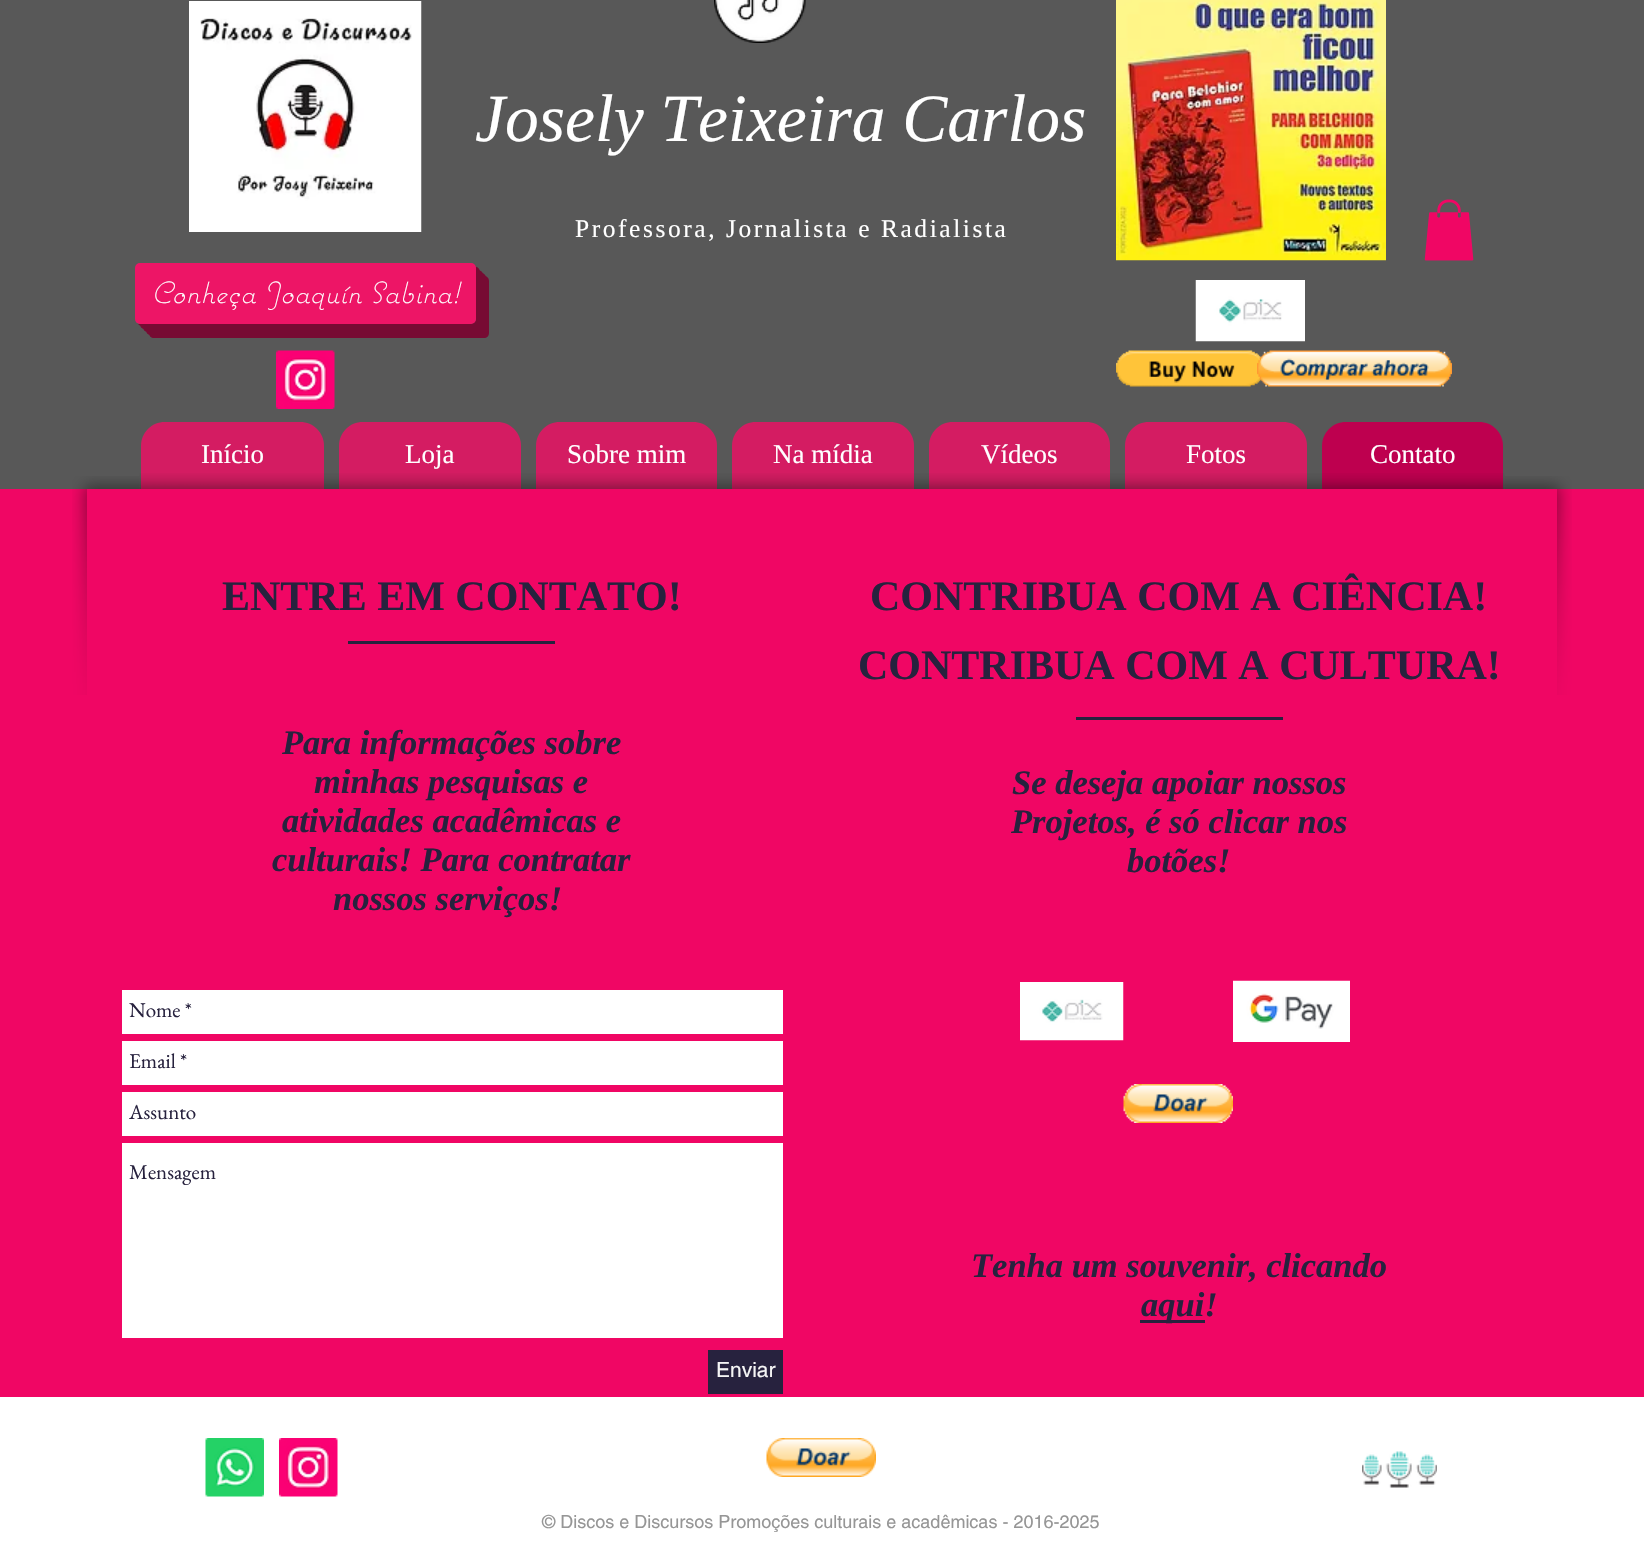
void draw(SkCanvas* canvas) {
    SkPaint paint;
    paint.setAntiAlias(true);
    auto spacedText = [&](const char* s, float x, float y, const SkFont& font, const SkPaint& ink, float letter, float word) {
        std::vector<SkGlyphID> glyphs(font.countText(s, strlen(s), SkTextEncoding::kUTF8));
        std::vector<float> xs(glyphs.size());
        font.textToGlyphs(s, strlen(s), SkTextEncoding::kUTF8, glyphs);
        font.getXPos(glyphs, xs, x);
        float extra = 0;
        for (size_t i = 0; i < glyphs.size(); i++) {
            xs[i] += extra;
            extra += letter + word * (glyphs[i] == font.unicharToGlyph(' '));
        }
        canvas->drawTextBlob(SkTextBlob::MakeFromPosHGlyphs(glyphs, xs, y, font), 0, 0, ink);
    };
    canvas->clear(0xFFF00664);
    paint.setColor(0xFF585858);
    canvas->drawRect(SkRect::MakeXYWH(0, 0, 1644, 489), paint);
    canvas->drawImageRect(SkImages::DeferredFromEncodedData(SkData::MakeFromFileName("img1.png")), SkRect::MakeXYWH(189, 1, 233, 231), SkSamplingOptions());
    canvas->drawImageRect(SkImages::DeferredFromEncodedData(SkData::MakeFromFileName("img2.png")), SkRect::MakeXYWH(714, 0, 92, 43), SkSamplingOptions());
    canvas->drawImageRect(SkImages::DeferredFromEncodedData(SkData::MakeFromFileName("img3.png")), SkRect::MakeXYWH(1116, 0, 270, 261), SkSamplingOptions());
    SkFont font1(fontMgr->matchFamilyStyle("Liberation Serif", SkFontStyle::Italic()), 67.5f);
    font1.setSubpixel(true);
    paint.setColor(0xFFFFFFFF);
    canvas->drawString("Josely Teixeira Carlos", 475, 141, font1, paint);
    SkFont font2(fontMgr->matchFamilyStyle("Liberation Serif", SkFontStyle::Normal()), 25.5f);
    font2.setSubpixel(true);
    spacedText("Professora, Jornalista e Radialista", 575, 237, font2, paint, 2.55f, 0);
    canvas->drawImageRect(SkImages::DeferredFromEncodedData(SkData::MakeFromFileName("img4.png")), SkRect::MakeXYWH(1424, 199, 50, 62), SkSamplingOptions());
    paint.setColor(0xFF770B33);
    canvas->drawPath(SkPathBuilder().moveTo(149, 324).lineTo(149, 333).cubicTo(149, 336, 151, 338, 154, 338).lineTo(484, 338).cubicTo(487, 338, 489, 336, 489, 333).lineTo(489, 281).cubicTo(489, 278, 487, 276, 484, 276).lineTo(476, 276).lineTo(476, 320).cubicTo(476, 322, 473, 324, 471, 324).close().detach(), paint);
    canvas->drawPath(SkPathBuilder().moveTo(146, 324).lineTo(146, 330).cubicTo(146, 333, 148, 335, 151, 335).lineTo(481, 335).cubicTo(484, 335, 486, 333, 486, 330).lineTo(486, 278).cubicTo(486, 275, 484, 273, 481, 273).lineTo(476, 273).lineTo(476, 320).cubicTo(476, 322, 473, 324, 471, 324).close().detach(), paint);
    canvas->drawPath(SkPathBuilder().moveTo(143, 324).cubicTo(143, 328, 143, 332, 148, 332).lineTo(478, 332).cubicTo(481, 332, 483, 330, 483, 327).lineTo(483, 284).cubicTo(483, 275, 485, 270, 476, 270).lineTo(476, 320).cubicTo(476, 322, 473, 324, 471, 324).close().detach(), paint);
    canvas->drawPath(SkPathBuilder().moveTo(140, 324).cubicTo(140, 327, 142, 329, 145, 329).lineTo(475, 329).cubicTo(478, 329, 480, 327, 480, 324).lineTo(480, 272).cubicTo(480, 269, 478, 267, 476, 267).lineTo(476, 320).cubicTo(476, 322, 473, 324, 471, 324).close().detach(), paint);
    canvas->drawPath(SkPathBuilder().moveTo(138, 324).cubicTo(139, 325, 140, 326, 142, 326).lineTo(472, 326).cubicTo(474, 326, 476, 324, 477, 322).lineTo(477, 268).lineTo(475, 265).lineTo(476, 267).lineTo(476, 320).cubicTo(476, 322, 473, 324, 471, 324).close().detach(), paint);
    paint.setColor(0xFFED1566);
    canvas->drawRoundRect(SkRect::MakeXYWH(135, 263, 341, 61), 5, 5, paint);
    SkFont font3(fontMgr->matchFamilyStyle("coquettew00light", SkFontStyle(300, SkFontStyle::kNormal_Width, SkFontStyle::kItalic_Slant)), 30);
    font3.setSubpixel(true);
    paint.setColor(0xFFFFFFFF);
    canvas->drawString("Conheça Joaquín Sabina!", 151, 303, font3, paint);
    canvas->drawImageRect(SkImages::DeferredFromEncodedData(SkData::MakeFromFileName("img5.png")), SkRect::MakeXYWH(1195, 280, 110, 62), SkSamplingOptions());
    canvas->drawImageRect(SkImages::DeferredFromEncodedData(SkData::MakeFromFileName("img6.png")), SkRect::MakeXYWH(276, 350, 59, 59), SkSamplingOptions());
    canvas->drawImageRect(SkImages::DeferredFromEncodedData(SkData::MakeFromFileName("img7.png")), SkRect::MakeXYWH(1116, 350, 146, 37), SkSamplingOptions());
    canvas->drawImageRect(SkImages::DeferredFromEncodedData(SkData::MakeFromFileName("img8.png")), SkRect::MakeXYWH(1257, 350, 195, 37), SkSamplingOptions());
    paint.setColor(0xFFD41C62);
    canvas->drawPath(SkPathBuilder().moveTo(165, 422).lineTo(300, 422).cubicTo(313.5f, 422, 324, 432.5f, 324, 446).lineTo(324, 489).lineTo(141, 489).lineTo(141, 446).cubicTo(141, 432.5f, 151.5f, 422, 165, 422).close().detach(), paint);
    SkFont font4(fontMgr->matchFamilyStyle("Liberation Serif", SkFontStyle::Normal()), 27);
    font4.setSubpixel(true);
    paint.setColor(0xFFFFFFFF);
    canvas->drawString("Início", 201, 463, font4, paint);
    paint.setColor(0xFFD41C62);
    canvas->drawPath(SkPathBuilder().moveTo(363, 422).lineTo(497, 422).cubicTo(510.5f, 422, 521, 432.5f, 521, 446).lineTo(521, 489).lineTo(339, 489).lineTo(339, 446).cubicTo(339, 432.5f, 349.5f, 422, 363, 422).close().detach(), paint);
    paint.setColor(0xFFFFFFFF);
    canvas->drawString("Loja", 405, 463, font4, paint);
    paint.setColor(0xFFD41C62);
    canvas->drawPath(SkPathBuilder().moveTo(560, 422).lineTo(693, 422).cubicTo(706.5f, 422, 717, 432.5f, 717, 446).lineTo(717, 489).lineTo(536, 489).lineTo(536, 446).cubicTo(536, 432.5f, 546.5f, 422, 560, 422).close().detach(), paint);
    paint.setColor(0xFFFFFFFF);
    canvas->drawString("Sobre mim", 567, 463, font4, paint);
    paint.setColor(0xFFD41C62);
    canvas->drawPath(SkPathBuilder().moveTo(756, 422).lineTo(890, 422).cubicTo(903.5f, 422, 914, 432.5f, 914, 446).lineTo(914, 489).lineTo(732, 489).lineTo(732, 446).cubicTo(732, 432.5f, 742.5f, 422, 756, 422).close().detach(), paint);
    paint.setColor(0xFFFFFFFF);
    canvas->drawString("Na mídia", 773, 463, font4, paint);
    paint.setColor(0xFFD41C62);
    canvas->drawPath(SkPathBuilder().moveTo(953, 422).lineTo(1086, 422).cubicTo(1099.5f, 422, 1110, 432.5f, 1110, 446).lineTo(1110, 489).lineTo(929, 489).lineTo(929, 446).cubicTo(929, 432.5f, 939.5f, 422, 953, 422).close().detach(), paint);
    paint.setColor(0xFFFFFFFF);
    canvas->drawString("Vídeos", 981, 463, font4, paint);
    paint.setColor(0xFFD41C62);
    canvas->drawPath(SkPathBuilder().moveTo(1149, 422).lineTo(1283, 422).cubicTo(1296.5f, 422, 1307, 432.5f, 1307, 446).lineTo(1307, 489).lineTo(1125, 489).lineTo(1125, 446).cubicTo(1125, 432.5f, 1135.5f, 422, 1149, 422).close().detach(), paint);
    paint.setColor(0xFFFFFFFF);
    canvas->drawString("Fotos", 1186, 463, font4, paint);
    paint.setColor(0xFFBE004F);
    canvas->drawPath(SkPathBuilder().moveTo(1346, 422).lineTo(1479, 422).cubicTo(1492.5f, 422, 1503, 432.5f, 1503, 446).lineTo(1503, 489).lineTo(1322, 489).lineTo(1322, 446).cubicTo(1322, 432.5f, 1332.5f, 422, 1346, 422).close().detach(), paint);
    paint.setColor(0xFFFFFFFF);
    canvas->drawString("Contato", 1370, 463, font4, paint);
    canvas->drawImageRect(SkImages::DeferredFromEncodedData(SkData::MakeFromFileName("img9.png")), SkRect::MakeXYWH(72, 476, 68, 219), SkSamplingOptions());
    canvas->drawImageRect(SkImages::DeferredFromEncodedData(SkData::MakeFromFileName("img10.png")), SkRect::MakeXYWH(139, 473, 1366, 16), SkSamplingOptions());
    canvas->drawImageRect(SkImages::DeferredFromEncodedData(SkData::MakeFromFileName("img11.png")), SkRect::MakeXYWH(1504, 476, 68, 219), SkSamplingOptions());
    paint.setColor(0xFFF00664);
    canvas->drawRect(SkRect::MakeXYWH(87, 489, 1470, 206), paint);
    SkFont font5(fontMgr->matchFamilyStyle("Liberation Serif", SkFontStyle::Bold()), 42);
    font5.setSubpixel(true);
    paint.setColor(0xFF27223E);
    canvas->drawString("ENTRE EM CONTATO!", 222, 610, font5, paint);
    canvas->drawString("CONTRIBUA COM A CIÊNCIA!", 870, 610, font5, paint);
    canvas->drawRect(SkRect::MakeXYWH(348, 641, 207, 3), paint);
    canvas->drawString("CONTRIBUA COM A CULTURA!", 858, 679, font5, paint);
    canvas->drawRect(SkRect::MakeXYWH(1076, 717, 207, 3), paint);
    SkFont font6(fontMgr->matchFamilyStyle("Liberation Serif", SkFontStyle::BoldItalic()), 34.5f);
    font6.setSubpixel(true);
    canvas->drawString("Para informações sobre", 282, 754, font6, paint);
    canvas->drawString("minhas pesquisas e", 314, 793, font6, paint);
    canvas->drawString("atividades acadêmicas e", 282, 832, font6, paint);
    canvas->drawString("culturais! Para contratar", 272, 871, font6, paint);
    canvas->drawString("nossos serviços!", 333, 910, font6, paint);
    canvas->drawString("Se deseja apoiar nossos", 1012, 794, font6, paint);
    canvas->drawString("Projetos, é só clicar nos", 1011, 833, font6, paint);
    canvas->drawString("botões!", 1127, 872, font6, paint);
    paint.setColor(0xFFFFFFFF);
    canvas->drawRect(SkRect::MakeXYWH(122, 990, 661, 44), paint);
    SkFont font7(fontMgr->matchFamilyStyle("EB Garamond", SkFontStyle::Normal()), 21);
    font7.setSubpixel(true);
    paint.setColor(0xFF27223E);
    canvas->drawString("Nome *", 129, 1017, font7, paint);
    paint.setColor(0xFFFFFFFF);
    canvas->drawRect(SkRect::MakeXYWH(122, 1041, 661, 44), paint);
    paint.setColor(0xFF27223E);
    canvas->drawString("Email *", 129, 1068, font7, paint);
    paint.setColor(0xFFFFFFFF);
    canvas->drawRect(SkRect::MakeXYWH(122, 1092, 661, 44), paint);
    paint.setColor(0xFF27223E);
    canvas->drawString("Assunto", 129, 1119, font7, paint);
    paint.setColor(0xFFFFFFFF);
    canvas->drawRect(SkRect::MakeXYWH(122, 1143, 661, 195), paint);
    paint.setColor(0xFF27223E);
    canvas->drawString("Mensagem", 129, 1179, font7, paint);
    canvas->drawRect(SkRect::MakeXYWH(708, 1350, 75, 44), paint);
    SkFont font8(fontMgr->matchFamilyStyle("helvetica", SkFontStyle::Normal()), 21);
    font8.setSubpixel(true);
    paint.setColor(0xFFF5F5F5);
    canvas->drawString("Enviar", 716, 1377, font8, paint);
    canvas->drawImageRect(SkImages::DeferredFromEncodedData(SkData::MakeFromFileName("img12.png")), SkRect::MakeXYWH(1020, 982, 104, 59), SkSamplingOptions());
    canvas->drawImageRect(SkImages::DeferredFromEncodedData(SkData::MakeFromFileName("img13.png")), SkRect::MakeXYWH(1123, 1084, 110, 39), SkSamplingOptions());
    canvas->drawImageRect(SkImages::DeferredFromEncodedData(SkData::MakeFromFileName("img14.png")), SkRect::MakeXYWH(1233, 980, 117, 62), SkSamplingOptions());
    paint.setColor(0xFF27223E);
    canvas->drawString("Tenha um souvenir, clicando", 971, 1277, font6, paint);
    canvas->drawRect(SkRect::MakeXYWH(1140, 1320, 65, 3), paint);
    canvas->drawString("aqui!", 1141, 1316, font6, paint);
    paint.setColor(0xFFFFFFFF);
    canvas->drawRect(SkRect::MakeXYWH(0, 1397, 1644, 146), paint);
    canvas->drawImageRect(SkImages::DeferredFromEncodedData(SkData::MakeFromFileName("img15.png")), SkRect::MakeXYWH(205, 1438, 59, 59), SkSamplingOptions());
    canvas->drawImageRect(SkImages::DeferredFromEncodedData(SkData::MakeFromFileName("img16.png")), SkRect::MakeXYWH(279, 1438, 59, 59), SkSamplingOptions());
    canvas->drawImageRect(SkImages::DeferredFromEncodedData(SkData::MakeFromFileName("img17.png")), SkRect::MakeXYWH(766, 1438, 110, 39), SkSamplingOptions());
    canvas->drawImageRect(SkImages::DeferredFromEncodedData(SkData::MakeFromFileName("img18.png")), SkRect::MakeXYWH(1362, 1451, 75, 37), SkSamplingOptions());
    SkFont font9(fontMgr->matchFamilyStyle("helvetica", SkFontStyle::Normal()), 18);
    font9.setSubpixel(true);
    paint.setColor(0xFF969696);
    canvas->drawString("© Discos e Discursos Promoções culturais e acadêmicas - 2016-2025", 542, 1528, font9, paint);
}
